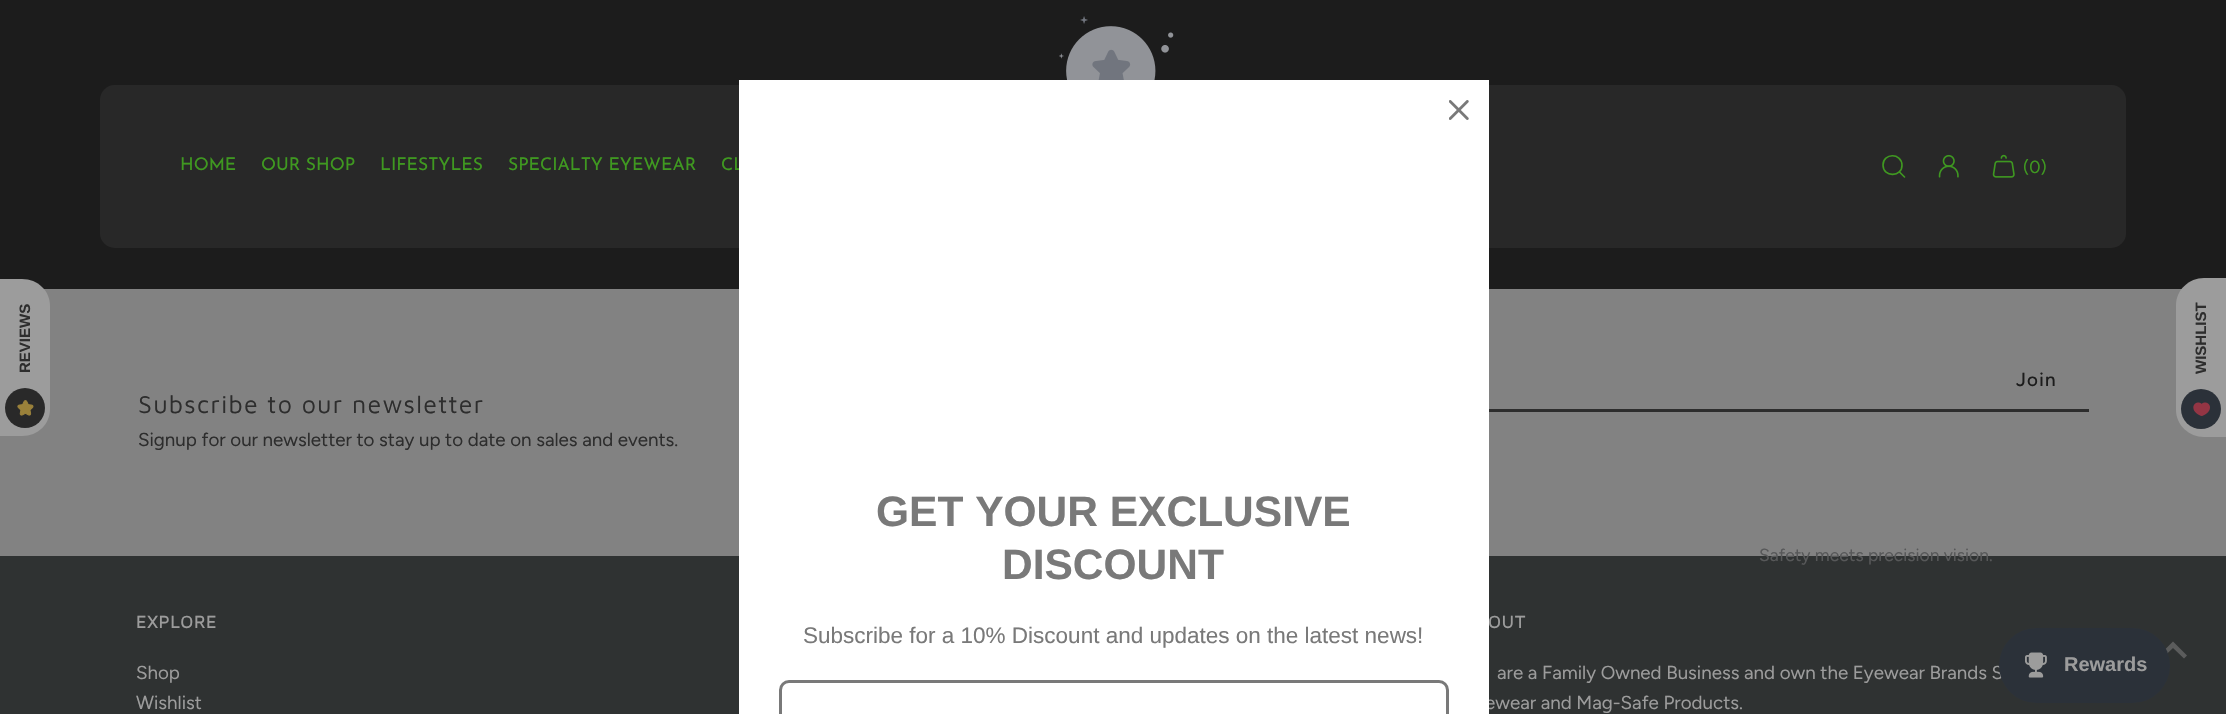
void draw(SkCanvas* canvas) {
    SkPaint paint;
    paint.setAntiAlias(true);
    auto spacedText = [&](const char* s, float x, float y, const SkFont& font, const SkPaint& ink, float letter, float word) {
        std::vector<SkGlyphID> glyphs(font.countText(s, strlen(s), SkTextEncoding::kUTF8));
        std::vector<float> xs(glyphs.size());
        font.textToGlyphs(s, strlen(s), SkTextEncoding::kUTF8, glyphs);
        font.getXPos(glyphs, xs, x);
        float extra = 0;
        for (size_t i = 0; i < glyphs.size(); i++) {
            xs[i] += extra;
            extra += letter + word * (glyphs[i] == font.unicharToGlyph(' '));
        }
        canvas->drawTextBlob(SkTextBlob::MakeFromPosHGlyphs(glyphs, xs, y, font), 0, 0, ink);
    };
    canvas->clear(0xFF1C1C1C);
    canvas->drawImageRect(SkImages::DeferredFromEncodedData(SkData::MakeFromFileName("img1.png")), SkRect::MakeXYWH(1059, 16, 115, 64), SkSamplingOptions());
    canvas->drawImageRect(SkImages::DeferredFromEncodedData(SkData::MakeFromFileName("img2.png")), SkRect::MakeXYWH(1092, 49, 39, 31), SkSamplingOptions());
    paint.setColor(0xFF282828);
    canvas->drawRoundRect(SkRect::MakeXYWH(100, 85, 2026, 163), 15, 15, paint);
    SkFont font1(fontMgr->matchFamilyStyle("Josefin Sans", SkFontStyle::Normal()), 17.5f);
    font1.setSubpixel(true);
    paint.setColor(0xFF3F9920);
    canvas->drawString("HOME", 180, 170, font1, paint);
    canvas->drawString("SPECIALTY EYEWEAR", 508, 170, font1, paint);
    canvas->drawString("OUR SHOP", 261, 170, font1, paint);
    paint.setColor(0xFF828282);
    canvas->drawRect(SkRect::MakeXYWH(0, 289, 2226, 267), paint);
    paint.setColor(0xFF2F3232);
    canvas->drawRect(SkRect::MakeXYWH(0, 556, 2226, 158), paint);
    SkFont font2(fontMgr->matchFamilyStyle("Figtree", SkFontStyle::Normal()), 17.5f);
    font2.setSubpixel(true);
    paint.setColor(0xFF575859);
    canvas->drawString("Safety meets precision vision.", 1759, 561, font2, paint);
    paint.setColor(0xFF3F9920);
    canvas->drawString("LIFESTYLES", 380, 170, font1, paint);
    canvas->drawString("CL", 721, 170, font1, paint);
    paint.setStyle(SkPaint::kStroke_Style);
    paint.setStrokeWidth(1.6f);
    paint.setStrokeCap(SkPaint::kRound_Cap);
    paint.setStrokeJoin(SkPaint::kRound_Join);
    canvas->drawPath(SkPathBuilder().moveTo(1899.5f, 172).lineTo(1904.5f, 177).moveTo(1883, 165).cubicTo(1883, 178, 1902.5f, 177, 1902, 165).cubicTo(1901.5f, 152.5f, 1883, 153, 1883, 165).close().detach(), paint);
    canvas->drawImageRect(SkImages::DeferredFromEncodedData(SkData::MakeFromFileName("img3.png")), SkRect::MakeXYWH(1938, 154, 21, 24), SkSamplingOptions());
    canvas->drawImageRect(SkImages::DeferredFromEncodedData(SkData::MakeFromFileName("img4.png")), SkRect::MakeXYWH(1992, 154, 23, 24), SkSamplingOptions());
    paint.setStyle(SkPaint::kFill_Style);
    canvas->drawString("(0)", 2023, 173, font2, paint);
    SkFont font3(fontMgr->matchFamilyStyle("Figtree", SkFontStyle(500, SkFontStyle::kNormal_Width, SkFontStyle::kUpright_Slant)), 18.75f);
    font3.setSubpixel(true);
    paint.setColor(0xFF1C1C1C);
    spacedText("Join", 2016, 386, font3, paint, 1.25f, 0);
    paint.setColor(0xFF2D2D2D);
    canvas->drawRect(SkRect::MakeXYWH(1489, 409, 600, 3), paint);
    SkFont font4(fontMgr->matchFamilyStyle("Maven Pro", SkFontStyle::Normal()), 25);
    font4.setSubpixel(true);
    spacedText("Subscribe to our newsletter", 138, 413, font4, paint, 1.25f, 0);
    SkFont font5(fontMgr->matchFamilyStyle("Figtree", SkFontStyle::Normal()), 18.75f);
    font5.setSubpixel(true);
    canvas->drawString("Signup for our newsletter to stay up to date on sales and events.", 138, 446, font5, paint);
    SkFont font6(fontMgr->matchFamilyStyle("Maven Pro", SkFontStyle::Bold()), 17.5f);
    font6.setSubpixel(true);
    paint.setColor(0xFF9C9C9C);
    spacedText("EXPLORE", 136, 628, font6, paint, 1, 0);
    canvas->drawString("Shop", 136, 679, font5, paint);
    canvas->drawString("Wishlist", 136, 709, font5, paint);
    spacedText("OUT", 1488, 628, font6, paint, 1, 0);
    canvas->drawString("are a Family Owned Business and own the Eyewear Brands S", 1497, 679, font5, paint);
    canvas->drawString("ewear and Mag-Safe Products.", 1485, 709, font5, paint);
    paint.setColor(0xFF5B5C5C);
    canvas->drawPath(SkPathBuilder().moveTo(2173, 641.5f).lineTo(2159, 655.5f).lineTo(2162, 658.5f).lineTo(2173, 648).lineTo(2184, 658.5f).lineTo(2187, 655.5f).close().detach(), paint);
    paint.setColor(0xFF9C9C9C);
    canvas->drawPath(SkPathBuilder().moveTo(0, 436).lineTo(0, 279).lineTo(22, 279).cubicTo(38, 279, 50, 291, 50, 306).lineTo(50, 409).cubicTo(50, 424, 38, 436, 22, 436).close().detach(), paint);
    SkFont font7(fontMgr->matchFamilyStyle("Liberation Sans", SkFontStyle::Bold()), 15);
    font7.setSubpixel(true);
    paint.setColor(0xFF2D2D2D);
    canvas->save();
    canvas->rotate(-90, 30, 373);
    canvas->drawString("REVIEWS", 30, 373, font7, paint);
    canvas->restore();
    paint.setColor(0xFF292929);
    canvas->drawCircle(25, 408, 20, paint);
    canvas->drawImageRect(SkImages::DeferredFromEncodedData(SkData::MakeFromFileName("img5.png")), SkRect::MakeXYWH(17, 400, 17, 16), SkSamplingOptions());
    paint.setColor(0xFF9C9C9C);
    canvas->drawPath(SkPathBuilder().moveTo(2176, 410).lineTo(2176, 305).cubicTo(2176, 290, 2189, 278, 2204, 278).lineTo(2226, 278).lineTo(2226, 437).lineTo(2204, 437).cubicTo(2189, 437, 2176, 425, 2176, 410).close().detach(), paint);
    paint.setColor(0xFF2D2D2D);
    canvas->save();
    canvas->rotate(-90, 2206, 374);
    canvas->drawString("WISHLIST", 2206, 374, font7, paint);
    canvas->restore();
    paint.setColor(0xFF2B3139);
    canvas->drawCircle(2201, 409, 20, paint);
    canvas->drawImageRect(SkImages::DeferredFromEncodedData(SkData::MakeFromFileName("img6.png")), SkRect::MakeXYWH(2193, 402, 17, 14), SkSamplingOptions());
    canvas->drawRoundRect(SkRect::MakeXYWH(1999, 628, 171, 75), 37.5f, 37.5f, paint);
    canvas->drawImageRect(SkImages::DeferredFromEncodedData(SkData::MakeFromFileName("img7.png")), SkRect::MakeXYWH(2025, 652, 22, 26), SkSamplingOptions());
    SkFont font8(fontMgr->matchFamilyStyle("Liberation Sans", SkFontStyle::Bold()), 20);
    font8.setSubpixel(true);
    paint.setColor(0xFF9C9C9C);
    canvas->drawString("Rewards", 2064, 671, font8, paint);
    paint.setColor(0xFFFFFFFF);
    canvas->drawRect(SkRect::MakeXYWH(739, 80, 750, 634), paint);
    canvas->drawImageRect(SkImages::DeferredFromEncodedData(SkData::MakeFromFileName("img8.png")), SkRect::MakeXYWH(1449, 100, 20, 20), SkSamplingOptions());
    SkFont font9(fontMgr->matchFamilyStyle("Liberation Sans", SkFontStyle::Bold()), 42.5f);
    font9.setSubpixel(true);
    paint.setColor(0xFF797979);
    canvas->drawString("GET YOUR EXCLUSIVE", 876, 526, font9, paint);
    canvas->drawString("DISCOUNT", 1002, 579, font9, paint);
    SkFont font10(fontMgr->matchFamilyStyle("Liberation Sans", SkFontStyle::Normal()), 22.5f);
    font10.setSubpixel(true);
    canvas->drawString("Subscribe for a 10% Discount and updates on the latest news!", 803, 643, font10, paint);
    paint.setStyle(SkPaint::kStroke_Style);
    paint.setStrokeWidth(3);
    paint.setStrokeCap(SkPaint::kButt_Cap);
    paint.setStrokeJoin(SkPaint::kMiter_Join);
    canvas->drawRoundRect(SkRect::MakeXYWH(780.5f, 681.5f, 667, 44), 8.5f, 8.5f, paint);
}
